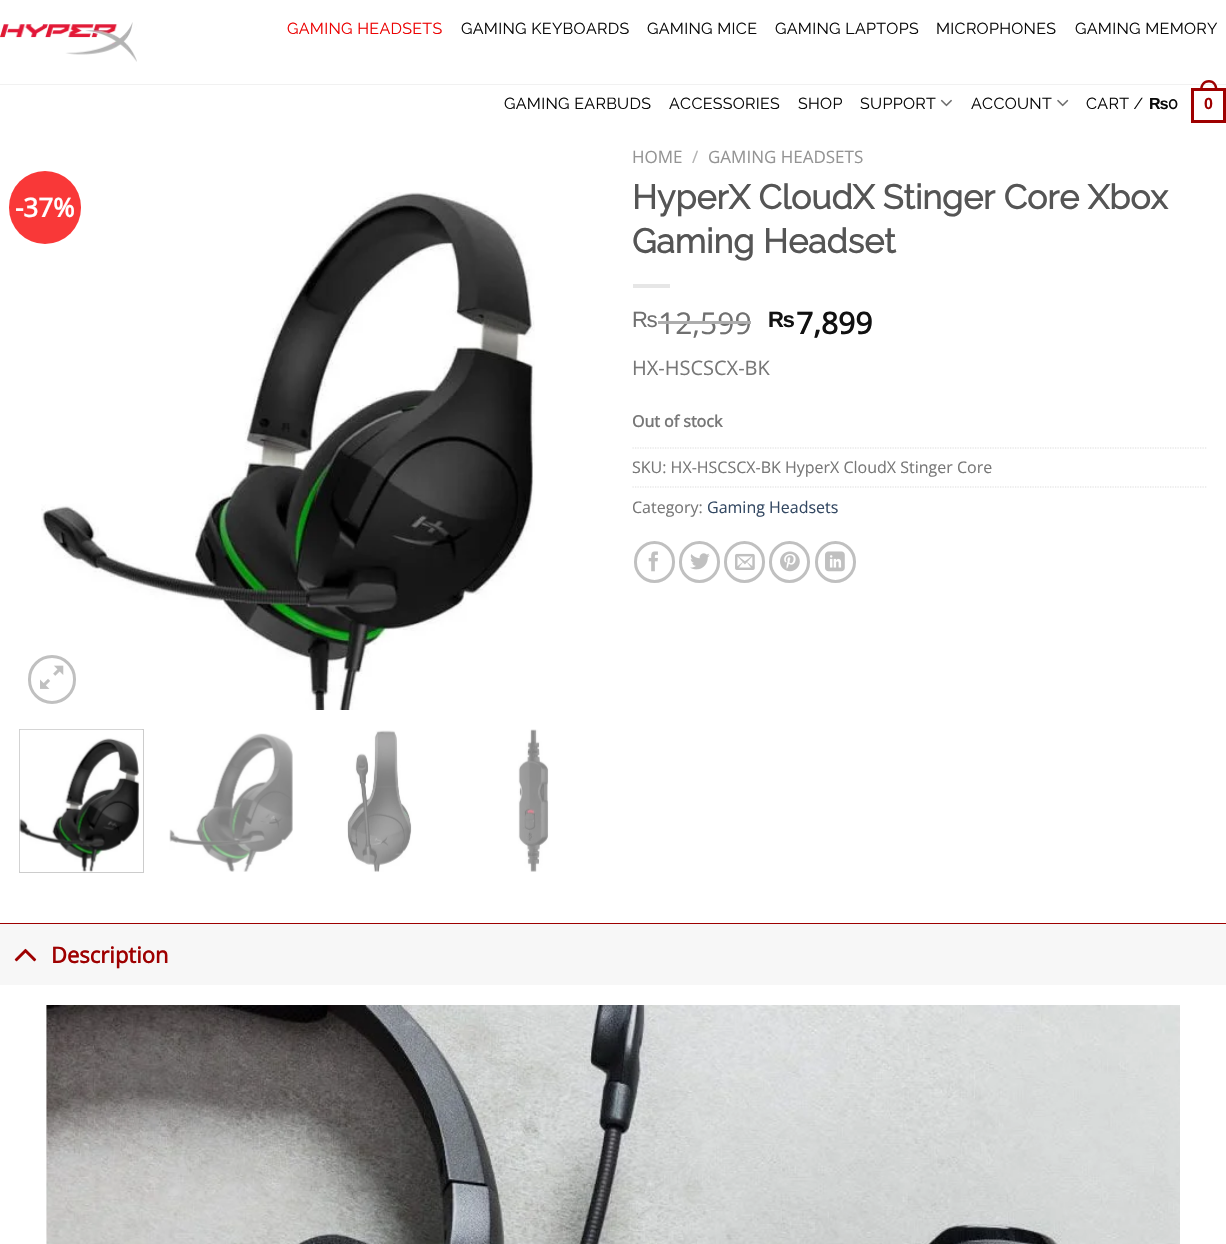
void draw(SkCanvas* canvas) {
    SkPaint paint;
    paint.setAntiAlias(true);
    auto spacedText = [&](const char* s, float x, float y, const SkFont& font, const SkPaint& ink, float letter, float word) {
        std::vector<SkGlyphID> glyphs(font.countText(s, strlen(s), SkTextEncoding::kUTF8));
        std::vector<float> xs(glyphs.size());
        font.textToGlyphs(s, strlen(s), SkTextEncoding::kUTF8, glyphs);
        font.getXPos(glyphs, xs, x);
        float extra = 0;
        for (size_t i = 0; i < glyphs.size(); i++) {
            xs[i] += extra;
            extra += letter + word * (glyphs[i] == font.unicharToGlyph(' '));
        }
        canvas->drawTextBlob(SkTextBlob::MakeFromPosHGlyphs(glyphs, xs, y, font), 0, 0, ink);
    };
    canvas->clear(0xFFFFFFFF);
    canvas->drawImageRect(SkImages::DeferredFromEncodedData(SkData::MakeFromFileName("img1.png")), SkRect::MakeXYWH(0, 22, 137, 40), SkSamplingOptions());
    SkFont font1(fontMgr->matchFamilyStyle("Raleway", SkFontStyle(100, SkFontStyle::kNormal_Width, SkFontStyle::kUpright_Slant)), 16);
    font1.setSubpixel(true);
    paint.setColor(0xFFEC0303);
    spacedText("GAMING HEADSETS", 287, 34, font1, paint, 0.3f, 0);
    paint.setColor(0xFF0A0A0A);
    spacedText("GAMING KEYBOARDS", 461, 34, font1, paint, 0.3f, 0);
    spacedText("GAMING MICE", 647, 34, font1, paint, 0.3f, 0);
    spacedText("GAMING LAPTOPS", 775, 34, font1, paint, 0.3f, 0);
    spacedText("MICROPHONES", 936, 34, font1, paint, 0.3f, 0);
    spacedText("GAMING MEMORY", 1075, 34, font1, paint, 0.3f, 0);
    spacedText("GAMING EARBUDS", 504, 109, font1, paint, 0.3f, 0);
    spacedText("ACCESSORIES", 669, 109, font1, paint, 0.3f, 0);
    spacedText("SHOP", 798, 109, font1, paint, 0.3f, 0);
    spacedText("SUPPORT", 860, 109, font1, paint, 0.3f, 0);
    canvas->drawImageRect(SkImages::DeferredFromEncodedData(SkData::MakeFromFileName("img2.png")), SkRect::MakeXYWH(940, 99, 12, 8), SkSamplingOptions());
    spacedText("ACCOUNT", 971, 109, font1, paint, 0.3f, 0);
    canvas->drawImageRect(SkImages::DeferredFromEncodedData(SkData::MakeFromFileName("img3.png")), SkRect::MakeXYWH(1057, 99, 12, 8), SkSamplingOptions());
    spacedText("CART /", 1086, 109, font1, paint, 0.3f, 0);
    SkFont font2(fontMgr->matchFamilyStyle("Liberation Sans", SkFontStyle::Bold()), 16);
    font2.setSubpixel(true);
    spacedText("₨", 1149, 109, font2, paint, 0.3f, 0);
    SkFont font3(fontMgr->matchFamilyStyle("Raleway", SkFontStyle::Bold()), 16);
    font3.setSubpixel(true);
    spacedText("0", 1168, 109, font3, paint, 0.3f, 0);
    paint.setStyle(SkPaint::kStroke_Style);
    paint.setStrokeWidth(3);
    paint.setColor(0xFF9E0000);
    canvas->drawRect(SkRect::MakeXYWH(1192.5f, 89.5f, 32, 32), paint);
    paint.setStyle(SkPaint::kFill_Style);
    canvas->drawPath(SkPathBuilder(SkPathFillType::kEvenOdd).moveTo(1209, 80).cubicTo(1214.5f, 80, 1217.5f, 84.5f, 1217.5f, 90).lineTo(1200, 90).cubicTo(1200, 84.5f, 1203, 80, 1209, 80).close().moveTo(1209, 82.5f).cubicTo(1213, 82.5f, 1215, 86, 1215, 90).lineTo(1202.5f, 90).cubicTo(1202.5f, 86, 1204.5f, 82.5f, 1209, 82.5f).close().detach(), paint);
    spacedText("0", 1204, 109, font2, paint, 0.3f, 0);
    paint.setColor(0x1A777777);
    canvas->drawRect(SkRect::MakeXYWH(0, 84, 1226, 1), paint);
    canvas->drawImageRect(SkImages::DeferredFromEncodedData(SkData::MakeFromFileName("img4.png")), SkRect::MakeXYWH(41, 192, 494, 518), SkSamplingOptions());
    paint.setColor(0xFFF93838);
    canvas->drawRoundRect(SkRect::MakeXYWH(9, 171, 72, 73), 36, 36, paint);
    SkFont font4(fontMgr->matchFamilyStyle("Open Sans", SkFontStyle::Bold()), 26);
    font4.setSubpixel(true);
    paint.setColor(0xFFFFFFFF);
    canvas->drawString("-37%", 15, 217, font4, paint);
    paint.setStyle(SkPaint::kStroke_Style);
    paint.setColor(0xFFC0C0C0);
    canvas->drawRoundRect(SkRect::MakeXYWH(29.5f, 656.5f, 45, 46), 22.5f, 22.5f, paint);
    canvas->drawImageRect(SkImages::DeferredFromEncodedData(SkData::MakeFromFileName("img5.png")), SkRect::MakeXYWH(40, 665, 24, 24), SkSamplingOptions());
    paint.setStrokeWidth(1);
    paint.setColor(0xFFCCCCCC);
    canvas->drawRect(SkRect::MakeXYWH(19.5f, 729.5f, 124, 143), paint);
    canvas->drawImageRect(SkImages::DeferredFromEncodedData(SkData::MakeFromFileName("img6.png")), SkRect::MakeXYWH(19, 729, 123, 143), SkSamplingOptions());
    canvas->drawImageRect(SkImages::DeferredFromEncodedData(SkData::MakeFromFileName("img7.png")), SkRect::MakeXYWH(169, 733, 124, 139), SkSamplingOptions());
    canvas->drawImageRect(SkImages::DeferredFromEncodedData(SkData::MakeFromFileName("img8.png")), SkRect::MakeXYWH(347, 730, 65, 142), SkSamplingOptions());
    canvas->drawImageRect(SkImages::DeferredFromEncodedData(SkData::MakeFromFileName("img9.png")), SkRect::MakeXYWH(518, 729, 31, 143), SkSamplingOptions());
    SkFont font5(fontMgr->matchFamilyStyle("Open Sans", SkFontStyle::Normal()), 17);
    font5.setSubpixel(true);
    paint.setStyle(SkPaint::kFill_Style);
    paint.setColor(0xFF949494);
    canvas->drawString("HOME", 632, 163, font5, paint);
    paint.setColor(0xFFB2B2B2);
    canvas->drawString("/", 692, 163, font5, paint);
    paint.setColor(0xFF949494);
    canvas->drawString("GAMING HEADSETS", 708, 163, font5, paint);
    SkFont font6(fontMgr->matchFamilyStyle("Raleway", SkFontStyle::Bold()), 34);
    font6.setSubpixel(true);
    paint.setColor(0xFF555555);
    canvas->drawString("HyperX CloudX Stinger Core Xbox", 632, 209, font6, paint);
    canvas->drawString("Gaming Headset", 632, 253, font6, paint);
    paint.setColor(0xFFE6E6E6);
    canvas->drawRect(SkRect::MakeXYWH(633, 284, 37, 4), paint);
    SkFont font7(fontMgr->matchFamilyStyle("Liberation Sans", SkFontStyle::Normal()), 22);
    font7.setSubpixel(true);
    paint.setColor(0xFF707070);
    canvas->drawString("₨", 632, 327, font7, paint);
    SkFont font8(fontMgr->matchFamilyStyle("Open Sans", SkFontStyle::Normal()), 30);
    font8.setSubpixel(true);
    canvas->drawString("12,599", 658, 334, font8, paint);
    paint.setColor(0xFFADADAD);
    canvas->drawRect(SkRect::MakeXYWH(658, 321, 93, 3), paint);
    SkFont font9(fontMgr->matchFamilyStyle("Liberation Sans", SkFontStyle::Bold()), 22);
    font9.setSubpixel(true);
    paint.setColor(0xFF111111);
    canvas->drawString("₨", 768, 327, font9, paint);
    SkFont font10(fontMgr->matchFamilyStyle("Open Sans", SkFontStyle::Bold()), 30);
    font10.setSubpixel(true);
    canvas->drawString("7,899", 796, 334, font10, paint);
    SkFont font11(fontMgr->matchFamilyStyle("Open Sans", SkFontStyle::Normal()), 20);
    font11.setSubpixel(true);
    paint.setColor(0xFF777777);
    canvas->drawString("HX-HSCSCX-BK", 632, 375, font11, paint);
    SkFont font12(fontMgr->matchFamilyStyle("Open Sans", SkFontStyle::Bold()), 16);
    font12.setSubpixel(true);
    canvas->drawString("Out of stock", 632, 427, font12, paint);
    paint.setStyle(SkPaint::kStroke_Style);
    paint.setStrokeWidth(1.2f);
    paint.setColor(0xFFDDDDDD);
    paint.setPathEffect(SkDashPathEffect::Make({{1.25f, 1.25f}}, 0));
    canvas->drawPath(SkPathBuilder().moveTo(632.5f, 448).lineTo(1207.5f, 448).detach(), paint);
    paint.setPathEffect(nullptr);
    SkFont font13(fontMgr->matchFamilyStyle("Open Sans", SkFontStyle::Normal()), 16);
    font13.setSubpixel(true);
    paint.setStyle(SkPaint::kFill_Style);
    paint.setColor(0xFF777777);
    canvas->drawString("SKU: HX-HSCSCX-BK HyperX CloudX Stinger Core", 632, 473, font13, paint);
    paint.setStyle(SkPaint::kStroke_Style);
    paint.setColor(0xFFDDDDDD);
    paint.setPathEffect(SkDashPathEffect::Make({{1.25f, 1.25f}}, 0));
    canvas->drawPath(SkPathBuilder().moveTo(632.5f, 487).lineTo(1207.5f, 487).detach(), paint);
    paint.setPathEffect(nullptr);
    paint.setStyle(SkPaint::kFill_Style);
    paint.setColor(0xFF777777);
    canvas->drawString("Category:", 632, 513, font13, paint);
    paint.setColor(0xFF334862);
    canvas->drawString("Gaming Headsets", 707, 513, font13, paint);
    paint.setStyle(SkPaint::kStroke_Style);
    paint.setStrokeWidth(3);
    paint.setColor(0xFFC0C0C0);
    canvas->drawRoundRect(SkRect::MakeXYWH(635.5f, 542.5f, 38, 39), 19, 19, paint);
    canvas->drawImageRect(SkImages::DeferredFromEncodedData(SkData::MakeFromFileName("img10.png")), SkRect::MakeXYWH(648, 551, 10, 21), SkSamplingOptions());
    canvas->drawRoundRect(SkRect::MakeXYWH(680.5f, 542.5f, 38, 39), 19, 19, paint);
    canvas->drawImageRect(SkImages::DeferredFromEncodedData(SkData::MakeFromFileName("img11.png")), SkRect::MakeXYWH(690, 553, 20, 17), SkSamplingOptions());
    canvas->drawRoundRect(SkRect::MakeXYWH(725.5f, 542.5f, 38, 39), 19, 19, paint);
    canvas->drawImageRect(SkImages::DeferredFromEncodedData(SkData::MakeFromFileName("img12.png")), SkRect::MakeXYWH(735, 553, 20, 17), SkSamplingOptions());
    canvas->drawRoundRect(SkRect::MakeXYWH(770.5f, 542.5f, 38, 39), 19, 19, paint);
    canvas->drawImageRect(SkImages::DeferredFromEncodedData(SkData::MakeFromFileName("img13.png")), SkRect::MakeXYWH(780, 551, 20, 21), SkSamplingOptions());
    canvas->drawRoundRect(SkRect::MakeXYWH(816.5f, 542.5f, 38, 39), 19, 19, paint);
    canvas->drawImageRect(SkImages::DeferredFromEncodedData(SkData::MakeFromFileName("img14.png")), SkRect::MakeXYWH(825, 551, 20, 21), SkSamplingOptions());
    paint.setStyle(SkPaint::kFill_Style);
    paint.setColor(0xFFF7F7F7);
    canvas->drawRect(SkRect::MakeXYWH(0, 924, 1226, 61), paint);
    paint.setColor(0xFF9E0000);
    canvas->drawRect(SkRect::MakeXYWH(0, 923, 1226, 1), paint);
    canvas->drawImageRect(SkImages::DeferredFromEncodedData(SkData::MakeFromFileName("img15.png")), SkRect::MakeXYWH(14, 948, 23, 14), SkSamplingOptions());
    SkFont font14(fontMgr->matchFamilyStyle("Open Sans", SkFontStyle::Bold()), 22);
    font14.setSubpixel(true);
    canvas->drawString("Description", 51, 963, font14, paint);
    canvas->drawImageRect(SkImages::DeferredFromEncodedData(SkData::MakeFromFileName("img16.png")), SkRect::MakeXYWH(46, 1005, 1134, 239), SkSamplingOptions());
}
